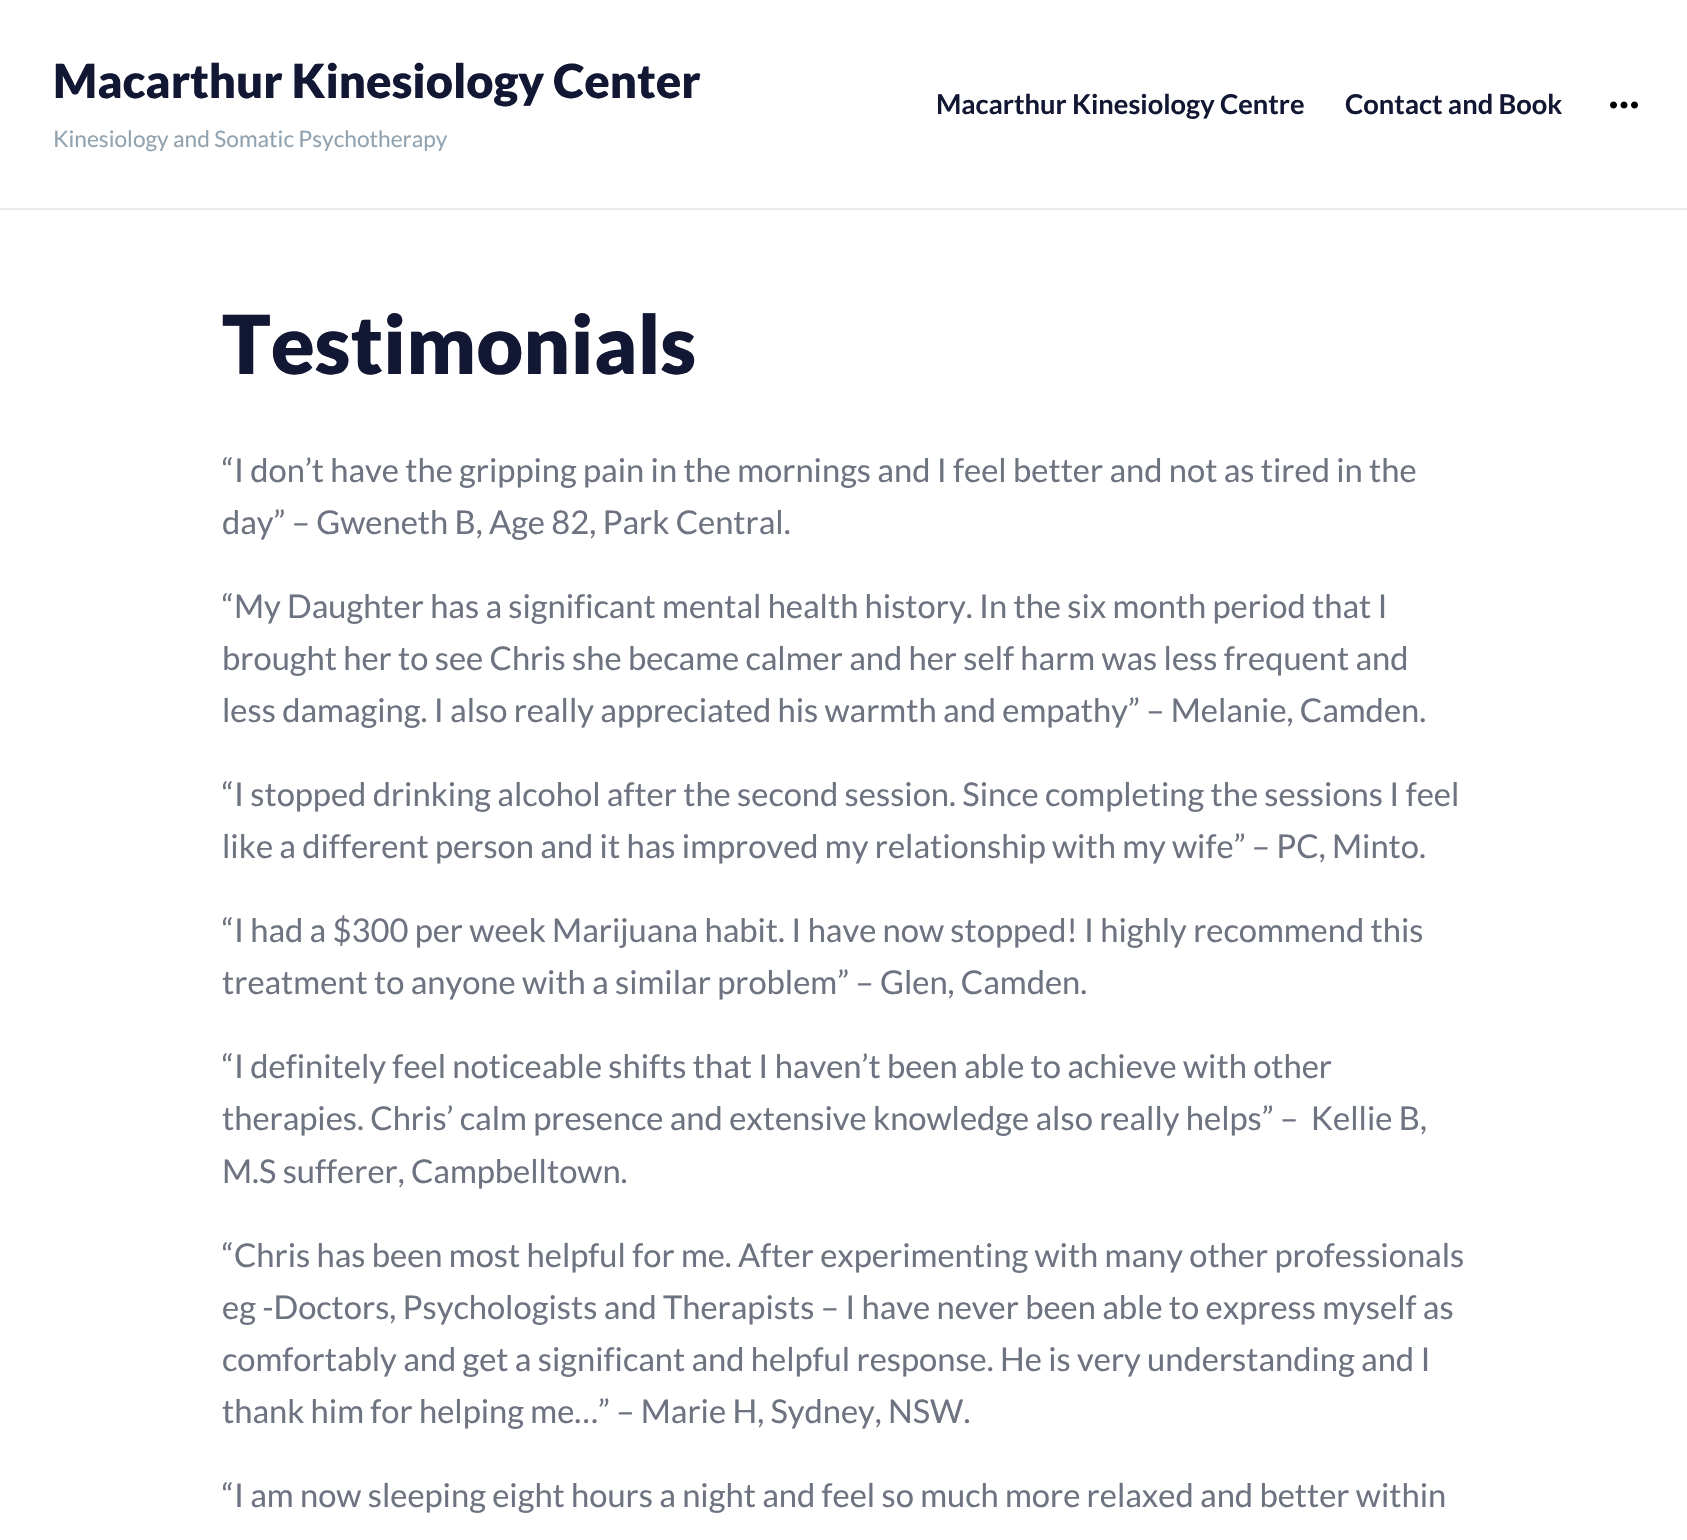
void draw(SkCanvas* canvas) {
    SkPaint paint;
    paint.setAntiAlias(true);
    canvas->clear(0xFFFFFFFF);
    paint.setColor(0xFFE8ECF1);
    canvas->drawRect(SkRect::MakeXYWH(0, 208, 1687, 2), paint);
    SkFont font1(fontMgr->matchFamilyStyle("Lato", SkFontStyle(900, SkFontStyle::kNormal_Width, SkFontStyle::kUpright_Slant)), 47);
    font1.setSubpixel(true);
    paint.setColor(0xFF121733);
    canvas->drawString("Macarthur Kinesiology Center", 53, 98, font1, paint);
    SkFont font2(fontMgr->matchFamilyStyle("Lato", SkFontStyle::Normal()), 22.7f);
    font2.setSubpixel(true);
    paint.setColor(0xFF91A3B0);
    canvas->drawString("Kinesiology and Somatic Psychotherapy", 53, 147, font2, paint);
    SkFont font3(fontMgr->matchFamilyStyle("Lato", SkFontStyle::Bold()), 27.25f);
    font3.setSubpixel(true);
    paint.setColor(0xFF121733);
    canvas->drawString("Macarthur Kinesiology Centre", 936, 114, font3, paint);
    canvas->drawString("Contact and Book", 1345, 114, font3, paint);
    canvas->drawImageRect(SkImages::DeferredFromEncodedData(SkData::MakeFromFileName("img1.png")), SkRect::MakeXYWH(1610, 101, 28, 8), SkSamplingOptions());
    SkFont font4(fontMgr->matchFamilyStyle("Lato", SkFontStyle(900, SkFontStyle::kNormal_Width, SkFontStyle::kUpright_Slant)), 81.25f);
    font4.setSubpixel(true);
    canvas->drawString("Testimonials", 222, 374, font4, paint);
    SkFont font5(fontMgr->matchFamilyStyle("Lato", SkFontStyle::Normal()), 32.7f);
    font5.setSubpixel(true);
    paint.setColor(0xFF6E7381);
    canvas->drawString("“I don’t have the gripping pain in the mornings and I feel better and not as tired in the", 222, 482, font5, paint);
    canvas->drawString("day” – Gweneth B, Age 82, Park Central.", 222, 534, font5, paint);
    canvas->drawString("“My Daughter has a significant mental health history. In the six month period that I", 222, 618, font5, paint);
    canvas->drawString("brought her to see Chris she became calmer and her self harm was less frequent and", 222, 670, font5, paint);
    canvas->drawString("less damaging. I also really appreciated his warmth and empathy” – Melanie, Camden.", 222, 722, font5, paint);
    canvas->drawString("“I stopped drinking alcohol after the second session. Since completing the sessions I feel", 222, 806, font5, paint);
    canvas->drawString("like a different person and it has improved my relationship with my wife” – PC, Minto.", 222, 858, font5, paint);
    canvas->drawString("“I had a $300 per week Marijuana habit. I have now stopped! I highly recommend this", 222, 942, font5, paint);
    canvas->drawString("treatment to anyone with a similar problem” – Glen, Camden.", 222, 994, font5, paint);
    canvas->drawString("“I definitely feel noticeable shifts that I haven’t been able to achieve with other", 222, 1078, font5, paint);
    canvas->drawString("therapies. Chris’ calm presence and extensive knowledge also really helps” –  Kellie B,", 222, 1130, font5, paint);
    canvas->drawString("M.S sufferer, Campbelltown.", 222, 1183, font5, paint);
    canvas->drawString("“Chris has been most helpful for me. After experimenting with many other professionals", 222, 1267, font5, paint);
    canvas->drawString("eg -Doctors, Psychologists and Therapists – I have never been able to express myself as", 222, 1319, font5, paint);
    canvas->drawString("comfortably and get a significant and helpful response. He is very understanding and I", 222, 1371, font5, paint);
    canvas->drawString("thank him for helping me…” – Marie H, Sydney, NSW.", 222, 1423, font5, paint);
    canvas->drawString("“I am now sleeping eight hours a night and feel so much more relaxed and better within", 222, 1507, font5, paint);
}
